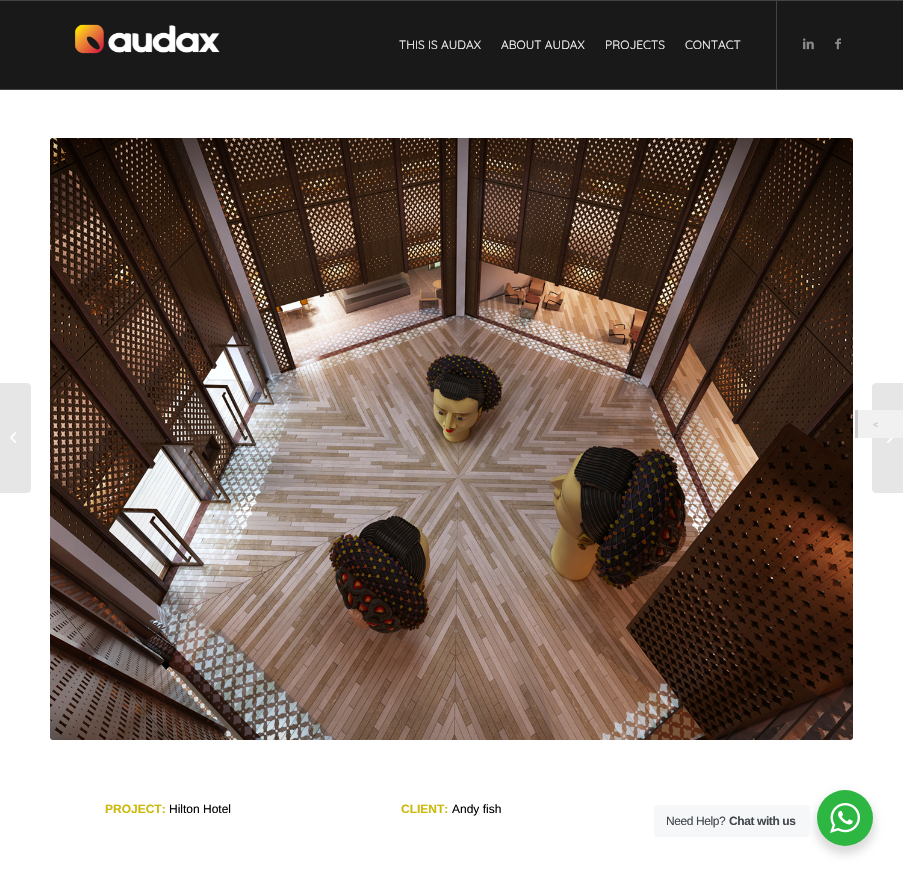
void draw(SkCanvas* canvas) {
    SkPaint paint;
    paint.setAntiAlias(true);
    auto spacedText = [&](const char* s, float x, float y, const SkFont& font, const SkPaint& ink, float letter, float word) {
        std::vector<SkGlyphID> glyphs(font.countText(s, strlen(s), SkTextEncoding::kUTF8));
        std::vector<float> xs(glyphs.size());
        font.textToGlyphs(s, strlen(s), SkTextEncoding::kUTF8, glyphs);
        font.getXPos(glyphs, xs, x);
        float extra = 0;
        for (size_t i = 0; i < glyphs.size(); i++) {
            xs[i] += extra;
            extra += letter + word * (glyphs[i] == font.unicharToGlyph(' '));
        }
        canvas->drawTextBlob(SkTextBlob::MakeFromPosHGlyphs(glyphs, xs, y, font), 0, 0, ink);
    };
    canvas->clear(0xFFFFFFFF);
    paint.setColor(0xFF191919);
    canvas->drawRect(SkRect::MakeXYWH(0, 1, 903, 88), paint);
    paint.setColor(0xFF444444);
    canvas->drawRect(SkRect::MakeXYWH(0, 0, 903, 1), paint);
    canvas->drawRect(SkRect::MakeXYWH(0, 89, 903, 1), paint);
    canvas->drawImageRect(SkImages::DeferredFromEncodedData(SkData::MakeFromFileName("img1.png")), SkRect::MakeXYWH(75, 24, 145, 30), SkSamplingOptions());
    canvas->drawRect(SkRect::MakeXYWH(776, 1, 1, 88), paint);
    SkFont font1(fontMgr->matchFamilyStyle("Quicksand", SkFontStyle::Normal()), 12);
    font1.setSubpixel(true);
    paint.setColor(0xFFFFFFFF);
    canvas->drawString("THIS IS AUDAX", 399, 49, font1, paint);
    canvas->drawString("ABOUT AUDAX", 501, 49, font1, paint);
    canvas->drawString("PROJECTS", 605, 49, font1, paint);
    canvas->drawString("CONTACT", 685, 49, font1, paint);
    canvas->drawImageRect(SkImages::DeferredFromEncodedData(SkData::MakeFromFileName("img2.png")), SkRect::MakeXYWH(803, 38, 11, 12), SkSamplingOptions());
    canvas->drawImageRect(SkImages::DeferredFromEncodedData(SkData::MakeFromFileName("img3.png")), SkRect::MakeXYWH(835, 38, 6, 12), SkSamplingOptions());
    paint.setColor(0xFFE6E6E6);
    canvas->drawPath(SkPathBuilder().moveTo(0, 383).lineTo(27, 383).cubicTo(29, 383, 31, 385, 31, 387).lineTo(31, 489).cubicTo(31, 491, 29, 493, 27, 493).lineTo(0, 493).close().detach(), paint);
    canvas->drawImageRect(SkImages::DeferredFromEncodedData(SkData::MakeFromFileName("img4.png")), SkRect::MakeXYWH(10, 432, 7, 11), SkSamplingOptions());
    canvas->drawPath(SkPathBuilder().moveTo(876, 383).lineTo(903, 383).lineTo(903, 493).lineTo(876, 493).cubicTo(874, 493, 872, 491, 872, 489).lineTo(872, 387).cubicTo(872, 385, 874, 383, 876, 383).close().detach(), paint);
    canvas->drawImageRect(SkImages::DeferredFromEncodedData(SkData::MakeFromFileName("img5.png")), SkRect::MakeXYWH(887, 438, 7, 5), SkSamplingOptions());
    canvas->drawImageRect(SkImages::DeferredFromEncodedData(SkData::MakeFromFileName("img6.png")), SkRect::MakeXYWH(50, 138, 803, 602), SkSamplingOptions());
    SkFont font2(fontMgr->matchFamilyStyle("Liberation Sans", SkFontStyle::Bold()), 12);
    font2.setSubpixel(true);
    paint.setColor(0xFFCCB90A);
    canvas->drawString("PROJECT:", 105, 813, font2, paint);
    SkFont font3(fontMgr->matchFamilyStyle("Liberation Sans", SkFontStyle::Normal()), 12);
    font3.setSubpixel(true);
    paint.setColor(0xFF000000);
    canvas->drawString("Hilton Hotel", 169, 813, font3, paint);
    paint.setColor(0xFFCCB90A);
    canvas->drawString("CLIENT:", 401, 813, font2, paint);
    paint.setColor(0xFF000000);
    canvas->drawString("Andy fish", 452, 813, font3, paint);
    paint.setColor(0xFFF1F1F1);
    canvas->drawRect(SkRect::MakeXYWH(858, 410, 45, 28), paint);
    paint.setColor(0xFFCECECE);
    canvas->drawRect(SkRect::MakeXYWH(855, 410, 3, 28), paint);
    SkFont font4(fontMgr->matchFamilyStyle("Cabin", SkFontStyle::Bold()), 12);
    font4.setSubpixel(true);
    canvas->drawString("<", 873, 428, font4, paint);
    paint.setColor(0x24000000);
    paint.setMaskFilter(SkMaskFilter::MakeBlur(kNormal_SkBlurStyle, 4));
    canvas->drawRoundRect(SkRect::MakeXYWH(815, 794, 60, 60), 30, 30, paint);
    paint.setMaskFilter(nullptr);
    paint.setColor(0xFFF5F7F9);
    canvas->drawRoundRect(SkRect::MakeXYWH(654, 805, 156, 32), 4, 4, paint);
    paint.setColor(0xFF43474E);
    spacedText("Need Help?", 666, 825, font3, paint, -0.4f, 0);
    spacedText("Chat with us", 729, 825, font2, paint, -0.4f, 0);
    paint.setColor(0xFF2DB742);
    canvas->drawCircle(845, 818, 28, paint);
    canvas->drawImageRect(SkImages::DeferredFromEncodedData(SkData::MakeFromFileName("img7.png")), SkRect::MakeXYWH(830, 803, 30, 30), SkSamplingOptions());
}
